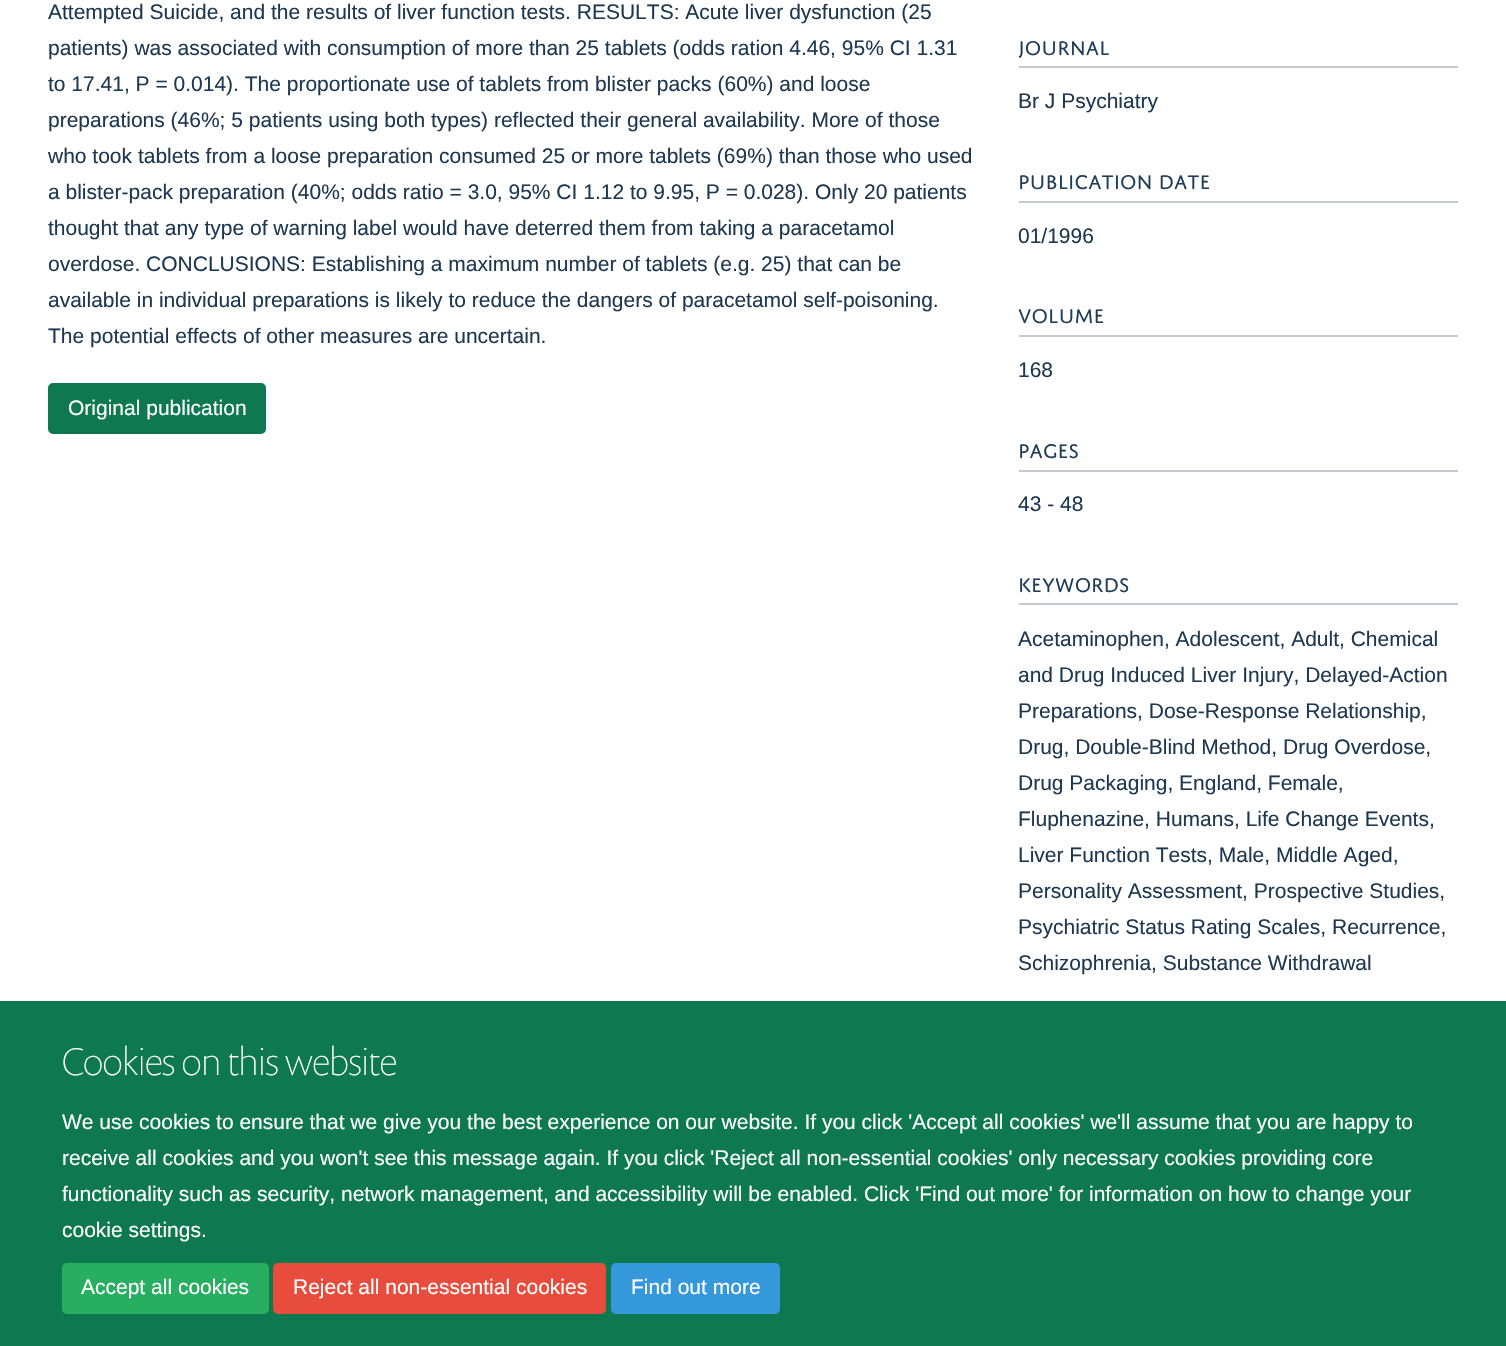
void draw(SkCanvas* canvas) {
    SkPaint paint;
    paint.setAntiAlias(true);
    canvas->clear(0xFFFFFFFF);
    SkFont font1(fontMgr->matchFamilyStyle("Liberation Sans", SkFontStyle::Normal()), 21);
    font1.setSubpixel(true);
    paint.setColor(0xFF1D3850);
    canvas->drawString("Attempted Suicide, and the results of liver function tests. RESULTS: Acute liver dysfunction (25", 48, 19, font1, paint);
    canvas->drawString("patients) was associated with consumption of more than 25 tablets (odds ration 4.46, 95% CI 1.31", 48, 55, font1, paint);
    canvas->drawString("to 17.41, P = 0.014). The proportionate use of tablets from blister packs (60%) and loose", 48, 91, font1, paint);
    canvas->drawString("preparations (46%; 5 patients using both types) reflected their general availability. More of those", 48, 127, font1, paint);
    canvas->drawString("who took tablets from a loose preparation consumed 25 or more tablets (69%) than those who used", 48, 163, font1, paint);
    canvas->drawString("a blister-pack preparation (40%; odds ratio = 3.0, 95% CI 1.12 to 9.95, P = 0.028). Only 20 patients", 48, 199, font1, paint);
    canvas->drawString("thought that any type of warning label would have deterred them from taking a paracetamol", 48, 235, font1, paint);
    canvas->drawString("overdose. CONCLUSIONS: Establishing a maximum number of tablets (e.g. 25) that can be", 48, 271, font1, paint);
    canvas->drawString("available in individual preparations is likely to reduce the dangers of paracetamol self-poisoning.", 48, 307, font1, paint);
    canvas->drawString("The potential effects of other measures are uncertain.", 48, 343, font1, paint);
    paint.setColor(0xFF0E7951);
    canvas->drawRoundRect(SkRect::MakeXYWH(49, 384, 216, 49), 4, 4, paint);
    paint.setStyle(SkPaint::kStroke_Style);
    paint.setStrokeWidth(2);
    canvas->drawRoundRect(SkRect::MakeXYWH(49, 384, 216, 49), 4, 4, paint);
    paint.setStyle(SkPaint::kFill_Style);
    paint.setColor(0xFFFFFFFF);
    canvas->drawString("Original publication", 68, 415, font1, paint);
    paint.setColor(0xFFC6CACF);
    canvas->drawRect(SkRect::MakeXYWH(1019, 66, 439, 2), paint);
    SkFont font2(fontMgr->matchFamilyStyle("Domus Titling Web", SkFontStyle::Normal()), 21);
    font2.setSubpixel(true);
    paint.setColor(0xFF203E58);
    canvas->drawString("JOURNAL", 1018, 55, font2, paint);
    paint.setColor(0xFF1D3850);
    canvas->drawString("Br J Psychiatry", 1018, 108, font1, paint);
    paint.setColor(0xFFC6CACF);
    canvas->drawRect(SkRect::MakeXYWH(1019, 201, 439, 2), paint);
    paint.setColor(0xFF203E58);
    canvas->drawString("PUBLICATION DATE", 1018, 189, font2, paint);
    paint.setColor(0xFF1D3850);
    canvas->drawString("01/1996", 1018, 243, font1, paint);
    paint.setColor(0xFFC6CACF);
    canvas->drawRect(SkRect::MakeXYWH(1019, 335, 439, 2), paint);
    paint.setColor(0xFF203E58);
    canvas->drawString("VOLUME", 1018, 323, font2, paint);
    paint.setColor(0xFF1D3850);
    canvas->drawString("168", 1018, 377, font1, paint);
    paint.setColor(0xFFC6CACF);
    canvas->drawRect(SkRect::MakeXYWH(1019, 470, 439, 2), paint);
    paint.setColor(0xFF203E58);
    canvas->drawString("PAGES", 1018, 458, font2, paint);
    paint.setColor(0xFF1D3850);
    canvas->drawString("43 - 48", 1018, 511, font1, paint);
    paint.setColor(0xFFC6CACF);
    canvas->drawRect(SkRect::MakeXYWH(1019, 603, 439, 2), paint);
    paint.setColor(0xFF203E58);
    canvas->drawString("KEYWORDS", 1018, 592, font2, paint);
    paint.setColor(0xFF1D3850);
    canvas->drawString("Acetaminophen, Adolescent, Adult, Chemical", 1018, 646, font1, paint);
    canvas->drawString("and Drug Induced Liver Injury, Delayed-Action", 1018, 682, font1, paint);
    canvas->drawString("Preparations, Dose-Response Relationship,", 1018, 718, font1, paint);
    canvas->drawString("Drug, Double-Blind Method, Drug Overdose,", 1018, 754, font1, paint);
    canvas->drawString("Drug Packaging, England, Female,", 1018, 790, font1, paint);
    canvas->drawString("Fluphenazine, Humans, Life Change Events,", 1018, 826, font1, paint);
    canvas->drawString("Liver Function Tests, Male, Middle Aged,", 1018, 862, font1, paint);
    canvas->drawString("Personality Assessment, Prospective Studies,", 1018, 898, font1, paint);
    canvas->drawString("Psychiatric Status Rating Scales, Recurrence,", 1018, 934, font1, paint);
    canvas->drawString("Schizophrenia, Substance Withdrawal", 1018, 970, font1, paint);
    paint.setColor(0xFF0E7951);
    canvas->drawRect(SkRect::MakeXYWH(0, 1001, 1506, 345), paint);
    SkFont font3(fontMgr->matchFamilyStyle("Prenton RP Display", SkFontStyle(100, SkFontStyle::kNormal_Width, SkFontStyle::kUpright_Slant)), 39);
    font3.setSubpixel(true);
    paint.setColor(0xFFFFFFFF);
    canvas->drawString("Cookies on this website", 62, 1075, font3, paint);
    canvas->drawString("We use cookies to ensure that we give you the best experience on our website. If you click 'Accept all cookies' we'll assume that you are happy to", 62, 1129, font1, paint);
    canvas->drawString("receive all cookies and you won't see this message again. If you click 'Reject all non-essential cookies' only necessary cookies providing core", 62, 1165, font1, paint);
    canvas->drawString("functionality such as security, network management, and accessibility will be enabled. Click 'Find out more' for information on how to change your", 62, 1201, font1, paint);
    canvas->drawString("cookie settings.", 62, 1237, font1, paint);
    paint.setColor(0xFF27AE60);
    canvas->drawRoundRect(SkRect::MakeXYWH(63, 1264, 205, 49), 4, 4, paint);
    paint.setStyle(SkPaint::kStroke_Style);
    canvas->drawRoundRect(SkRect::MakeXYWH(63, 1264, 205, 49), 4, 4, paint);
    paint.setStyle(SkPaint::kFill_Style);
    paint.setColor(0xFFFFFFFF);
    canvas->drawString("Accept all cookies", 81, 1294, font1, paint);
    paint.setColor(0xFFE74C3C);
    canvas->drawRoundRect(SkRect::MakeXYWH(274, 1264, 331, 49), 4, 4, paint);
    paint.setStyle(SkPaint::kStroke_Style);
    canvas->drawRoundRect(SkRect::MakeXYWH(274, 1264, 331, 49), 4, 4, paint);
    paint.setStyle(SkPaint::kFill_Style);
    paint.setColor(0xFFFFFFFF);
    canvas->drawString("Reject all non-essential cookies", 293, 1294, font1, paint);
    paint.setColor(0xFF3498DB);
    canvas->drawRoundRect(SkRect::MakeXYWH(612, 1264, 167, 49), 4, 4, paint);
    paint.setStyle(SkPaint::kStroke_Style);
    canvas->drawRoundRect(SkRect::MakeXYWH(612, 1264, 167, 49), 4, 4, paint);
    paint.setStyle(SkPaint::kFill_Style);
    paint.setColor(0xFFFFFFFF);
    canvas->drawString("Find out more", 631, 1294, font1, paint);
}
